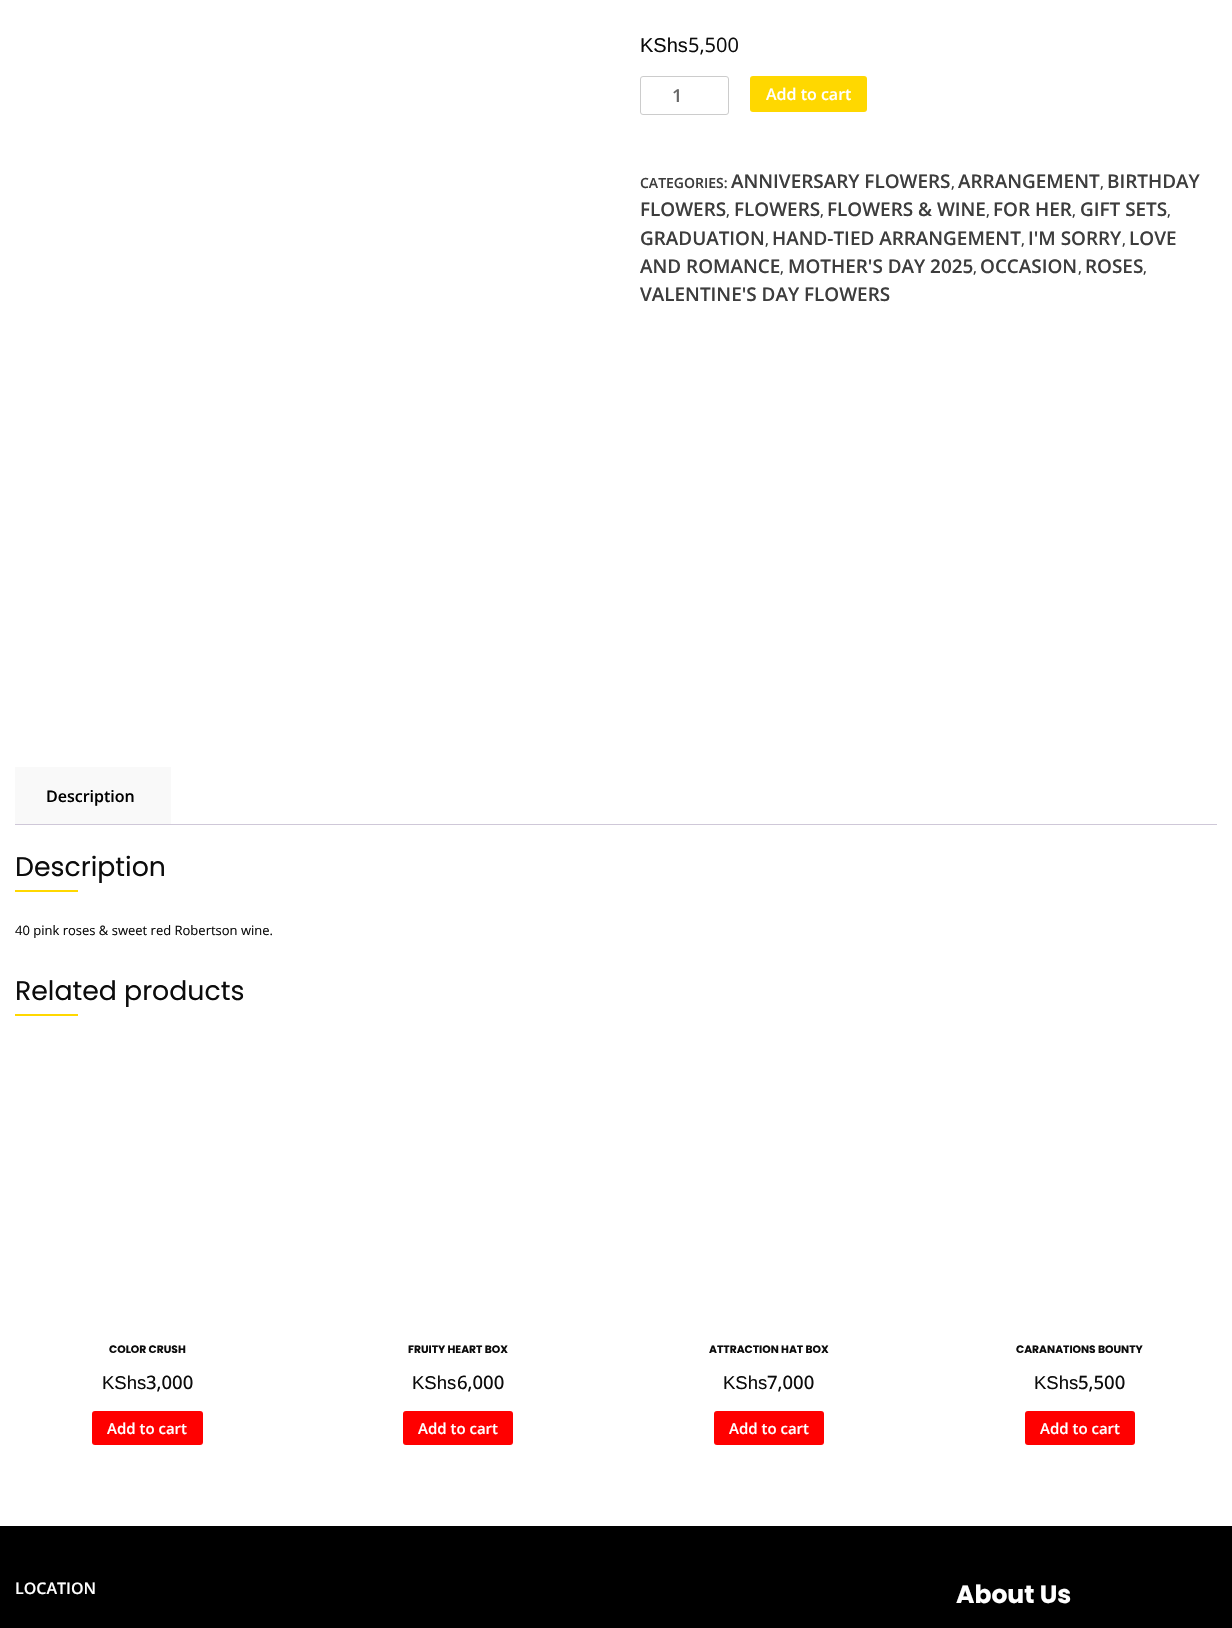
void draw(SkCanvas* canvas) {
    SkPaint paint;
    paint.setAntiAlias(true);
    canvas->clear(0xFFFFFFFF);
    SkFont font1(fontMgr->matchFamilyStyle("Liberation Sans", SkFontStyle::Normal()), 20);
    font1.setSubpixel(true);
    paint.setColor(0xFF0C0C0C);
    canvas->drawString("KShs", 640, 52, font1, paint);
    SkFont font2(fontMgr->matchFamilyStyle("Open Sans", SkFontStyle::Normal()), 20);
    font2.setSubpixel(true);
    canvas->drawString("5,500", 688, 52, font2, paint);
    paint.setStyle(SkPaint::kStroke_Style);
    paint.setStrokeWidth(1);
    paint.setColor(0xFFCCCCCC);
    canvas->drawRoundRect(SkRect::MakeXYWH(640.5f, 76.5f, 88, 38), 2.5f, 2.5f, paint);
    SkFont font3(fontMgr->matchFamilyStyle("Open Sans", SkFontStyle(600, SkFontStyle::kNormal_Width, SkFontStyle::kUpright_Slant)), 18);
    font3.setSubpixel(true);
    paint.setStyle(SkPaint::kFill_Style);
    paint.setColor(0xFF666666);
    canvas->drawString("1", 672, 102, font3, paint);
    paint.setColor(0xFFFFD800);
    canvas->drawRoundRect(SkRect::MakeXYWH(750, 76, 117, 36), 3, 3, paint);
    SkFont font4(fontMgr->matchFamilyStyle("Open Sans", SkFontStyle(600, SkFontStyle::kNormal_Width, SkFontStyle::kUpright_Slant)), 16);
    font4.setSubpixel(true);
    paint.setColor(0xFFFFFFFF);
    canvas->drawString("Add to cart", 766, 100, font4, paint);
    SkFont font5(fontMgr->matchFamilyStyle("Open Sans", SkFontStyle(600, SkFontStyle::kNormal_Width, SkFontStyle::kUpright_Slant)), 14);
    font5.setSubpixel(true);
    paint.setColor(0xFF3D3D3D);
    canvas->drawString("CATEGORIES:", 640, 188, font5, paint);
    SkFont font6(fontMgr->matchFamilyStyle("Open Sans", SkFontStyle(600, SkFontStyle::kNormal_Width, SkFontStyle::kUpright_Slant)), 18.9f);
    font6.setSubpixel(true);
    canvas->drawString("ANNIVERSARY FLOWERS", 731, 188, font6, paint);
    canvas->drawString(",", 951, 188, font5, paint);
    canvas->drawString("ARRANGEMENT", 958, 188, font6, paint);
    canvas->drawString(",", 1100, 188, font5, paint);
    canvas->drawString("BIRTHDAY", 1107, 188, font6, paint);
    canvas->drawString("FLOWERS", 640, 216, font6, paint);
    canvas->drawString(",", 726, 216, font5, paint);
    canvas->drawString("FLOWERS", 734, 216, font6, paint);
    canvas->drawString(",", 820, 216, font5, paint);
    canvas->drawString("FLOWERS & WINE", 827, 216, font6, paint);
    canvas->drawString(",", 986, 216, font5, paint);
    canvas->drawString("FOR HER", 993, 216, font6, paint);
    canvas->drawString(",", 1072, 216, font5, paint);
    canvas->drawString("GIFT SETS", 1080, 216, font6, paint);
    canvas->drawString(",", 1167, 216, font5, paint);
    canvas->drawString("GRADUATION", 640, 245, font6, paint);
    canvas->drawString(",", 765, 245, font5, paint);
    canvas->drawString("HAND-TIED ARRANGEMENT", 772, 245, font6, paint);
    canvas->drawString(",", 1021, 245, font5, paint);
    canvas->drawString("I'M SORRY", 1028, 245, font6, paint);
    canvas->drawString(",", 1122, 245, font5, paint);
    canvas->drawString("LOVE", 1129, 245, font6, paint);
    canvas->drawString("AND ROMANCE", 640, 273, font6, paint);
    canvas->drawString(",", 780, 273, font5, paint);
    canvas->drawString("MOTHER'S DAY 2025", 788, 273, font6, paint);
    canvas->drawString(",", 973, 273, font5, paint);
    canvas->drawString("OCCASION", 980, 273, font6, paint);
    canvas->drawString(",", 1078, 273, font5, paint);
    canvas->drawString("ROSES", 1085, 273, font6, paint);
    canvas->drawString(",", 1143, 273, font5, paint);
    canvas->drawString("VALENTINE'S DAY FLOWERS", 640, 301, font6, paint);
    paint.setColor(0xFFF9F9F9);
    canvas->drawRect(SkRect::MakeXYWH(15, 767, 156, 57), paint);
    paint.setColor(0xFF000000);
    canvas->drawString("Description", 46, 802, font4, paint);
    paint.setColor(0xFFCFC8D8);
    canvas->drawRect(SkRect::MakeXYWH(15, 824, 1202, 1), paint);
    SkFont font7(fontMgr->matchFamilyStyle("Poppins", SkFontStyle::Normal()), 26.75f);
    font7.setSubpixel(true);
    paint.setColor(0xFF0C0C0C);
    canvas->drawString("Description", 15, 876, font7, paint);
    paint.setColor(0xFFFFD800);
    canvas->drawRect(SkRect::MakeXYWH(15, 890, 63, 2), paint);
    SkFont font8(fontMgr->matchFamilyStyle("Open Sans", SkFontStyle::Normal()), 13);
    font8.setSubpixel(true);
    paint.setColor(0xFF0C0C0C);
    canvas->drawString("40 pink roses & sweet red Robertson wine.", 15, 935, font8, paint);
    canvas->drawString("Related products", 15, 1000, font7, paint);
    paint.setColor(0xFFFFD800);
    canvas->drawRect(SkRect::MakeXYWH(15, 1014, 63, 2), paint);
    SkFont font9(fontMgr->matchFamilyStyle("Poppins", SkFontStyle::Bold()), 10.75f);
    font9.setSubpixel(true);
    paint.setColor(0xFF0C0C0C);
    canvas->drawString("COLOR CRUSH", 109, 1353, font9, paint);
    SkFont font10(fontMgr->matchFamilyStyle("Liberation Sans", SkFontStyle::Normal()), 18.5f);
    font10.setSubpixel(true);
    canvas->drawString("KShs", 102, 1389, font10, paint);
    SkFont font11(fontMgr->matchFamilyStyle("Open Sans", SkFontStyle(500, SkFontStyle::kNormal_Width, SkFontStyle::kUpright_Slant)), 18.5f);
    font11.setSubpixel(true);
    canvas->drawString("3,000", 146, 1389, font11, paint);
    paint.setColor(0xFFFF0000);
    canvas->drawRoundRect(SkRect::MakeXYWH(92, 1411, 111, 34), 3, 3, paint);
    SkFont font12(fontMgr->matchFamilyStyle("Open Sans", SkFontStyle(600, SkFontStyle::kNormal_Width, SkFontStyle::kUpright_Slant)), 15);
    font12.setSubpixel(true);
    paint.setColor(0xFFFFFFFF);
    canvas->drawString("Add to cart", 107, 1434, font12, paint);
    paint.setColor(0xFF0C0C0C);
    canvas->drawString("FRUITY HEART BOX", 408, 1353, font9, paint);
    canvas->drawString("KShs", 412, 1389, font10, paint);
    canvas->drawString("6,000", 457, 1389, font11, paint);
    paint.setColor(0xFFFF0000);
    canvas->drawRoundRect(SkRect::MakeXYWH(403, 1411, 110, 34), 3, 3, paint);
    paint.setColor(0xFFFFFFFF);
    canvas->drawString("Add to cart", 418, 1434, font12, paint);
    paint.setColor(0xFF0C0C0C);
    canvas->drawString("ATTRACTION HAT BOX", 709, 1353, font9, paint);
    canvas->drawString("KShs", 723, 1389, font10, paint);
    canvas->drawString("7,000", 767, 1389, font11, paint);
    paint.setColor(0xFFFF0000);
    canvas->drawRoundRect(SkRect::MakeXYWH(714, 1411, 110, 34), 3, 3, paint);
    paint.setColor(0xFFFFFFFF);
    canvas->drawString("Add to cart", 729, 1434, font12, paint);
    paint.setColor(0xFF0C0C0C);
    canvas->drawString("CARANATIONS BOUNTY", 1016, 1353, font9, paint);
    canvas->drawString("KShs", 1034, 1389, font10, paint);
    canvas->drawString("5,500", 1078, 1389, font11, paint);
    paint.setColor(0xFFFF0000);
    canvas->drawRoundRect(SkRect::MakeXYWH(1025, 1411, 110, 34), 3, 3, paint);
    paint.setColor(0xFFFFFFFF);
    canvas->drawString("Add to cart", 1040, 1434, font12, paint);
    paint.setColor(0xFF000000);
    canvas->drawRect(SkRect::MakeXYWH(0, 1526, 1232, 102), paint);
    paint.setColor(0xFFFFFFFF);
    canvas->drawString("LOCATION", 15, 1594, font4, paint);
    SkFont font13(fontMgr->matchFamilyStyle("Poppins", SkFontStyle::Bold()), 25);
    font13.setSubpixel(true);
    canvas->drawString("About Us", 956, 1603, font13, paint);
}
